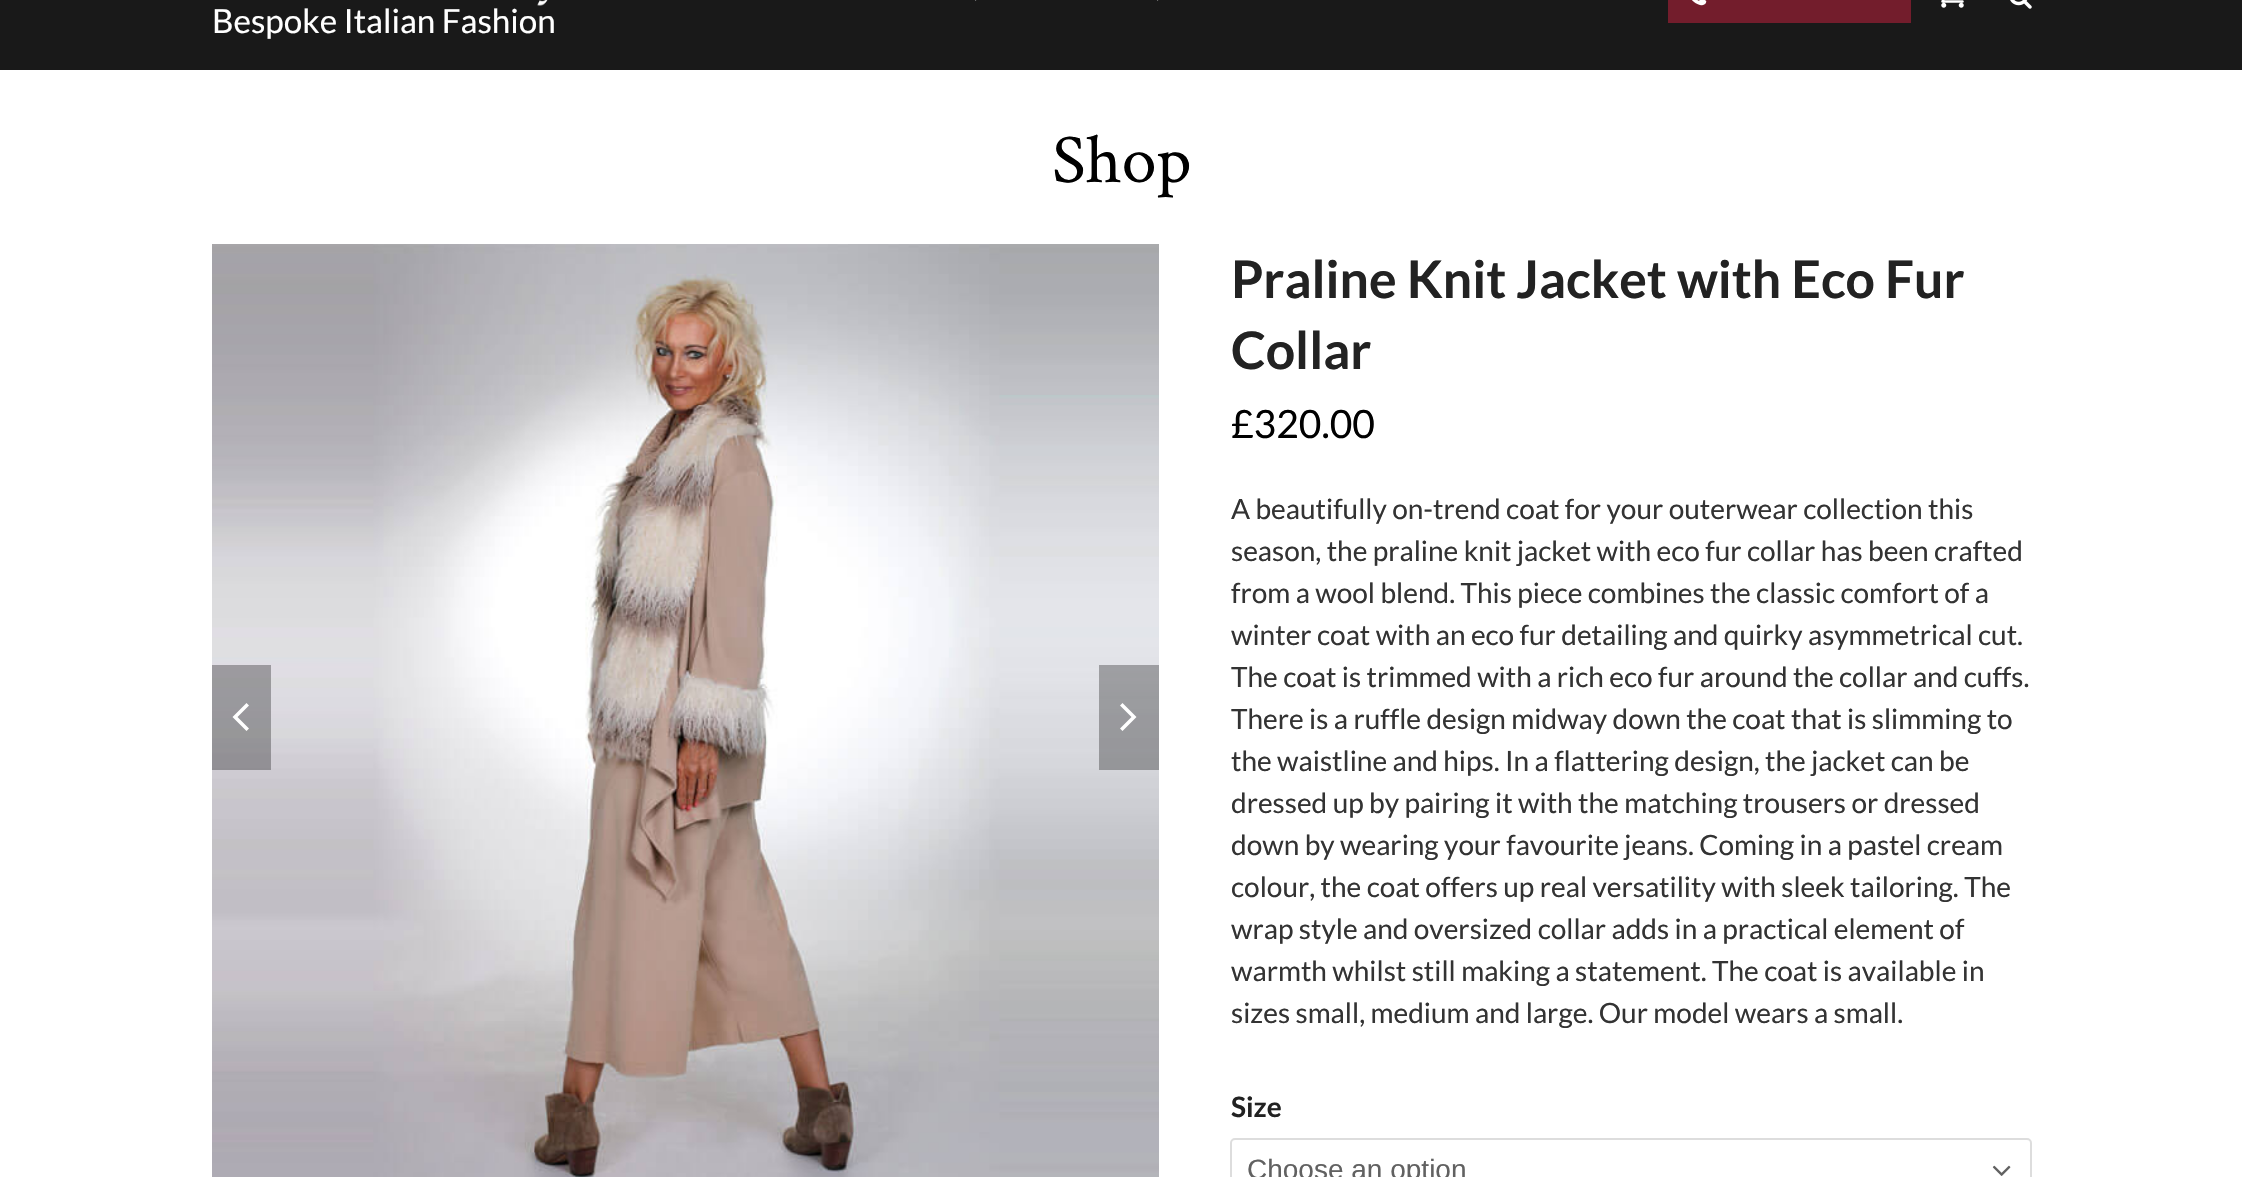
void draw(SkCanvas* canvas) {
    SkPaint paint;
    paint.setAntiAlias(true);
    canvas->clear(0xFFFFFFFF);
    paint.setColor(0xFF191919);
    canvas->drawRect(SkRect::MakeXYWH(0, 0, 2242, 70), paint);
    canvas->drawImageRect(SkImages::DeferredFromEncodedData(SkData::MakeFromFileName("img1.png")), SkRect::MakeXYWH(537, 0, 11, 6), SkSamplingOptions());
    SkFont font1(fontMgr->matchFamilyStyle("Lato", SkFontStyle::Normal()), 33.25f);
    font1.setSubpixel(true);
    paint.setColor(0xFFFFFFFF);
    canvas->drawString("Bespoke Italian Fashion", 212, 33, font1, paint);
    canvas->drawImageRect(SkImages::DeferredFromEncodedData(SkData::MakeFromFileName("img2.png")), SkRect::MakeXYWH(975, 0, 2, 1), SkSamplingOptions());
    canvas->drawImageRect(SkImages::DeferredFromEncodedData(SkData::MakeFromFileName("img2.png")), SkRect::MakeXYWH(1157, 0, 2, 1), SkSamplingOptions());
    paint.setColor(0xFF731D2C);
    canvas->drawRect(SkRect::MakeXYWH(1668, 0, 243, 23), paint);
    canvas->drawImageRect(SkImages::DeferredFromEncodedData(SkData::MakeFromFileName("img3.png")), SkRect::MakeXYWH(1692, 0, 15, 6), SkSamplingOptions());
    canvas->drawImageRect(SkImages::DeferredFromEncodedData(SkData::MakeFromFileName("img4.png")), SkRect::MakeXYWH(1941, 0, 23, 8), SkSamplingOptions());
    canvas->drawImageRect(SkImages::DeferredFromEncodedData(SkData::MakeFromFileName("img5.png")), SkRect::MakeXYWH(2010, 0, 22, 9), SkSamplingOptions());
    SkFont font2(fontMgr->matchFamilyStyle("Crimson Text", SkFontStyle::Normal()), 70);
    font2.setSubpixel(true);
    paint.setColor(0xFF000000);
    canvas->drawString("Shop", 1052, 182, font2, paint);
    canvas->drawImageRect(SkImages::DeferredFromEncodedData(SkData::MakeFromFileName("img6.png")), SkRect::MakeXYWH(212, 244, 947, 933), SkSamplingOptions());
    paint.setColor(0x4D000000);
    canvas->drawRect(SkRect::MakeXYWH(212, 665, 59, 105), paint);
    paint.setColor(0xFFFFFFFF);
    canvas->drawPath(SkPathBuilder().moveTo(249, 705.5f).lineTo(246.5f, 703).lineTo(232.5f, 717).lineTo(246.5f, 731).lineTo(249, 728.5f).lineTo(237.5f, 717).close().detach(), paint);
    paint.setColor(0x4D000000);
    canvas->drawRect(SkRect::MakeXYWH(1099, 665, 60, 105), paint);
    paint.setColor(0xFFFFFFFF);
    canvas->drawPath(SkPathBuilder().moveTo(1120, 728.5f).lineTo(1122.5f, 731).lineTo(1136.5f, 717).lineTo(1122.5f, 703).lineTo(1120, 705.5f).lineTo(1131.5f, 717).close().detach(), paint);
    SkFont font3(fontMgr->matchFamilyStyle("Lato", SkFontStyle::Bold()), 51.75f);
    font3.setSubpixel(true);
    paint.setColor(0xFF222222);
    canvas->drawString("Praline Knit Jacket with Eco Fur", 1231, 298, font3, paint);
    canvas->drawString("Collar", 1231, 369, font3, paint);
    SkFont font4(fontMgr->matchFamilyStyle("Lato", SkFontStyle::Normal()), 39);
    font4.setSubpixel(true);
    paint.setColor(0xFF000000);
    canvas->drawString("£320.00", 1231, 438, font4, paint);
    SkFont font5(fontMgr->matchFamilyStyle("Lato", SkFontStyle::Normal()), 28);
    font5.setSubpixel(true);
    paint.setColor(0xFF333333);
    canvas->drawString("A beautifully on-trend coat for your outerwear collection this", 1231, 519, font5, paint);
    canvas->drawString("season, the praline knit jacket with eco fur collar has been crafted", 1231, 561, font5, paint);
    canvas->drawString("from a wool blend. This piece combines the classic comfort of a", 1231, 603, font5, paint);
    canvas->drawString("winter coat with an eco fur detailing and quirky asymmetrical cut.", 1231, 645, font5, paint);
    canvas->drawString("The coat is trimmed with a rich eco fur around the collar and cuffs.", 1231, 687, font5, paint);
    canvas->drawString("There is a ruffle design midway down the coat that is slimming to", 1231, 729, font5, paint);
    canvas->drawString("the waistline and hips. In a flattering design, the jacket can be", 1231, 771, font5, paint);
    canvas->drawString("dressed up by pairing it with the matching trousers or dressed", 1231, 813, font5, paint);
    canvas->drawString("down by wearing your favourite jeans. Coming in a pastel cream", 1231, 855, font5, paint);
    canvas->drawString("colour, the coat offers up real versatility with sleek tailoring. The", 1231, 897, font5, paint);
    canvas->drawString("wrap style and oversized collar adds in a practical element of", 1231, 939, font5, paint);
    canvas->drawString("warmth whilst still making a statement. The coat is available in", 1231, 981, font5, paint);
    canvas->drawString("sizes small, medium and large. Our model wears a small.", 1231, 1023, font5, paint);
    SkFont font6(fontMgr->matchFamilyStyle("Lato", SkFontStyle::Bold()), 28);
    font6.setSubpixel(true);
    paint.setColor(0xFF222222);
    canvas->drawString("Size", 1231, 1117, font6, paint);
    paint.setStyle(SkPaint::kStroke_Style);
    paint.setStrokeWidth(2);
    paint.setColor(0xFFDDDDDD);
    canvas->drawRoundRect(SkRect::MakeXYWH(1231, 1139, 800, 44), 4, 4, paint);
    SkFont font7(fontMgr->matchFamilyStyle("Liberation Sans", SkFontStyle::Normal()), 28);
    font7.setSubpixel(true);
    paint.setStyle(SkPaint::kFill_Style);
    paint.setColor(0xFF616161);
    canvas->drawString("Choose an option", 1247, 1179, font7, paint);
    canvas->drawImageRect(SkImages::DeferredFromEncodedData(SkData::MakeFromFileName("img7.png")), SkRect::MakeXYWH(1992, 1165, 19, 11), SkSamplingOptions());
}
